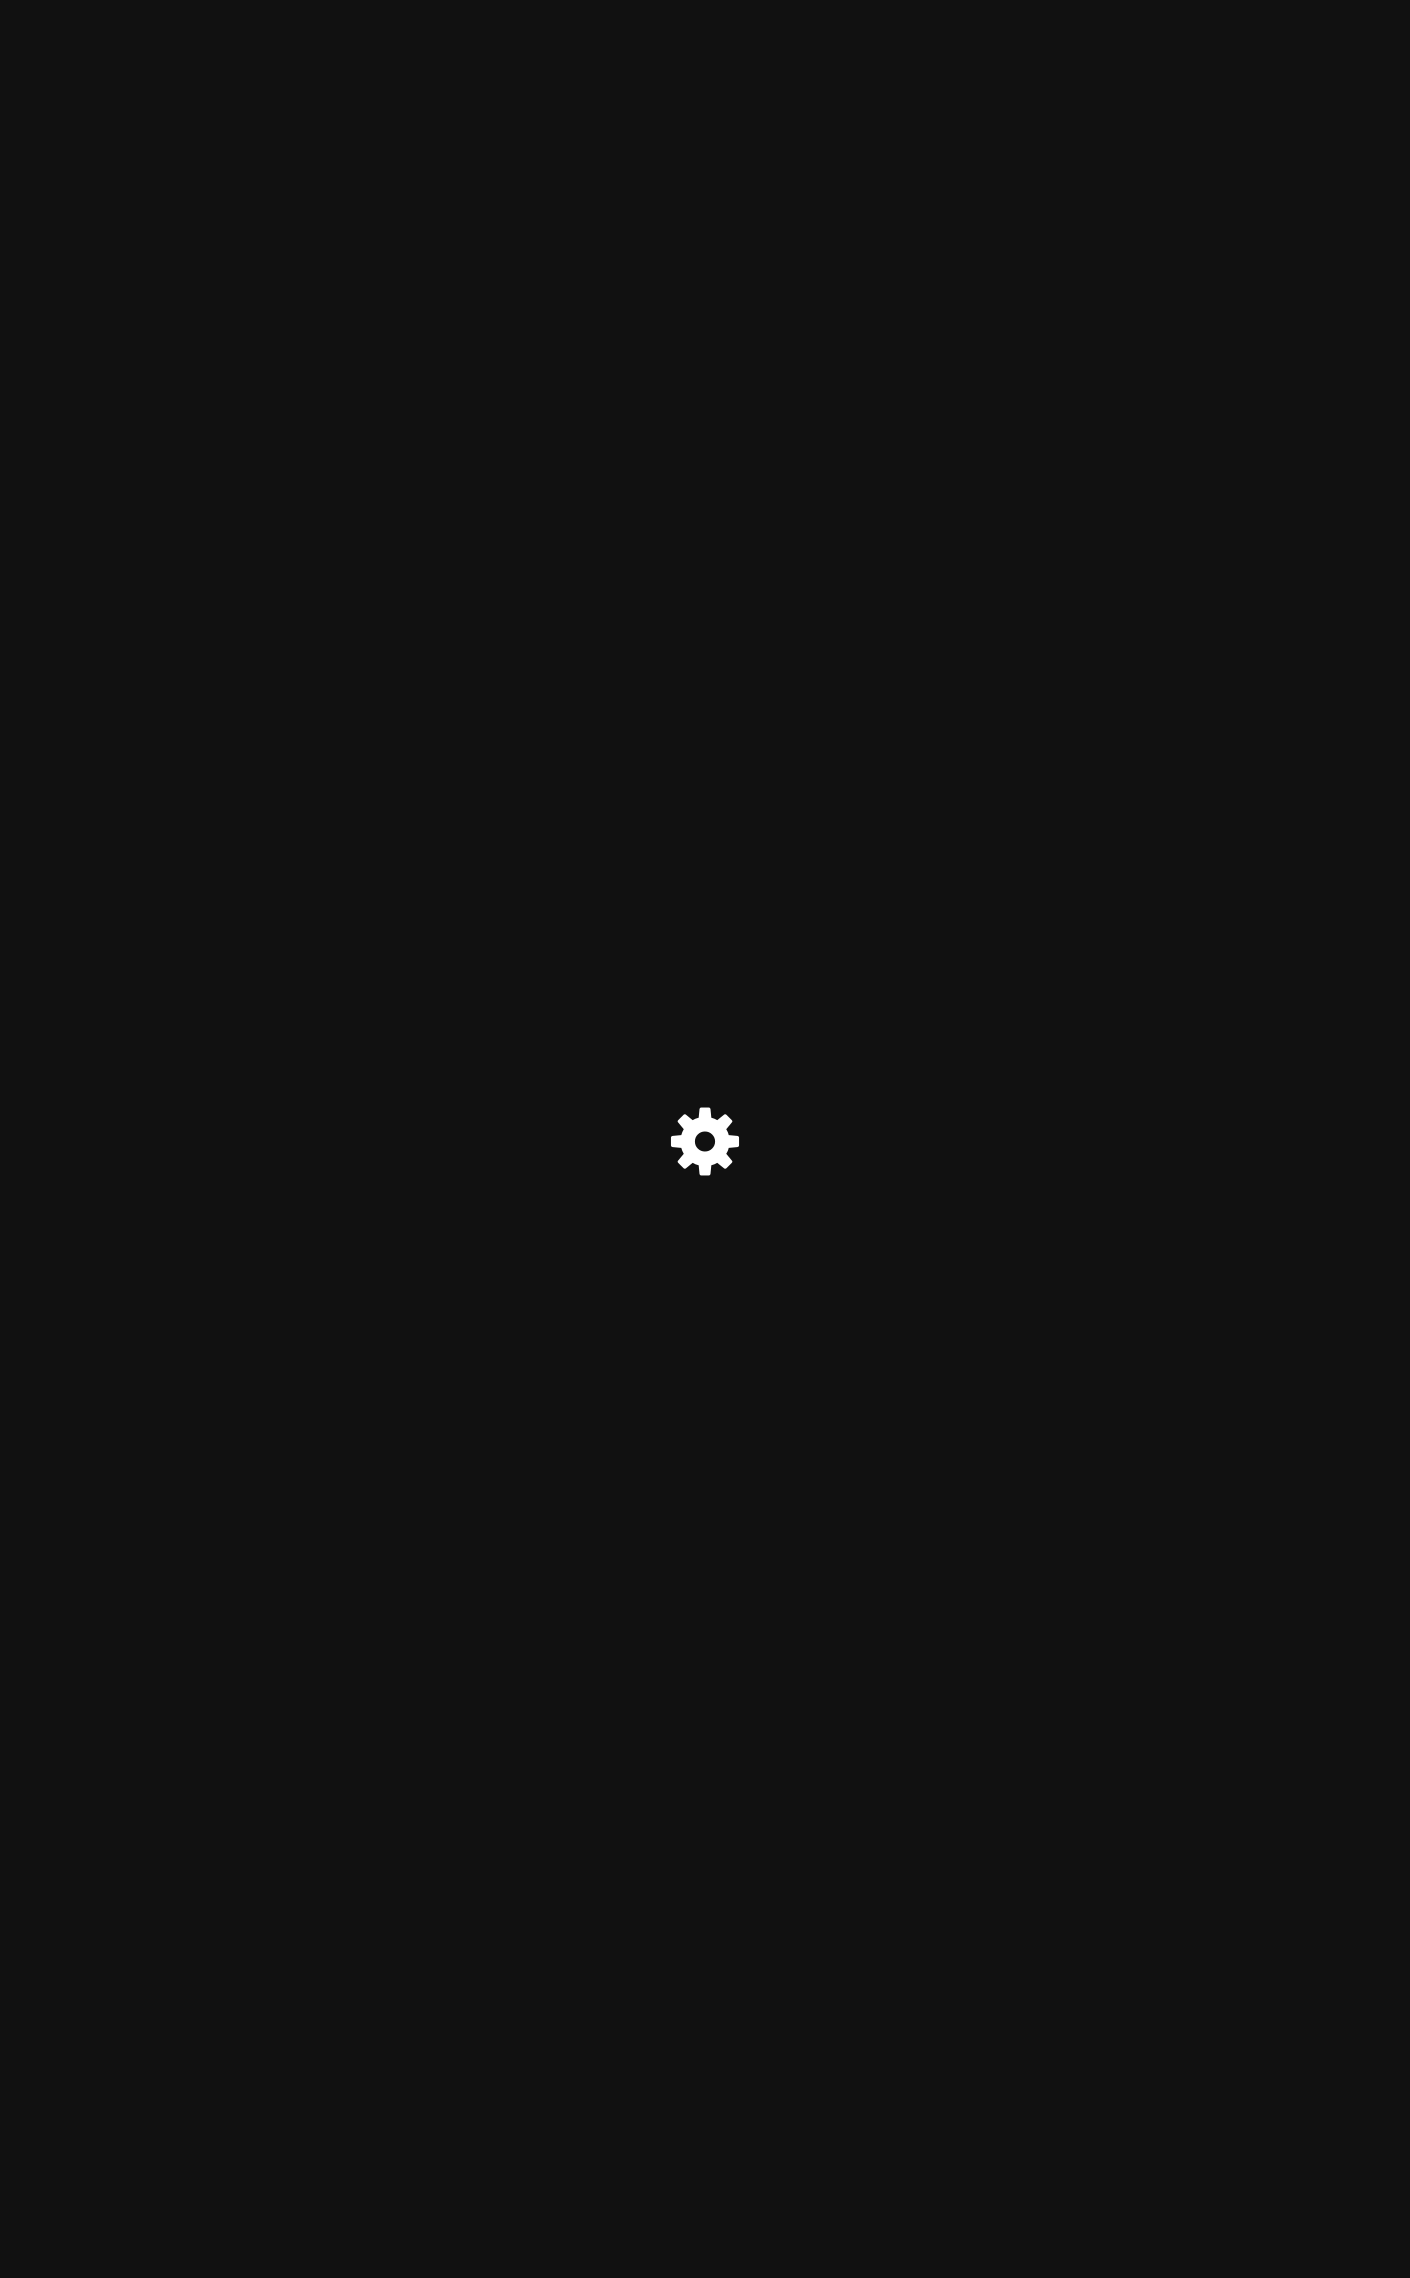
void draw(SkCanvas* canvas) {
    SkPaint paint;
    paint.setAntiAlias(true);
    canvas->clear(0xFF111111);
    canvas->drawImageRect(SkImages::DeferredFromEncodedData(SkData::MakeFromFileName("img1.png")), SkRect::MakeXYWH(670, 1107, 70, 69), SkSamplingOptions());
}
